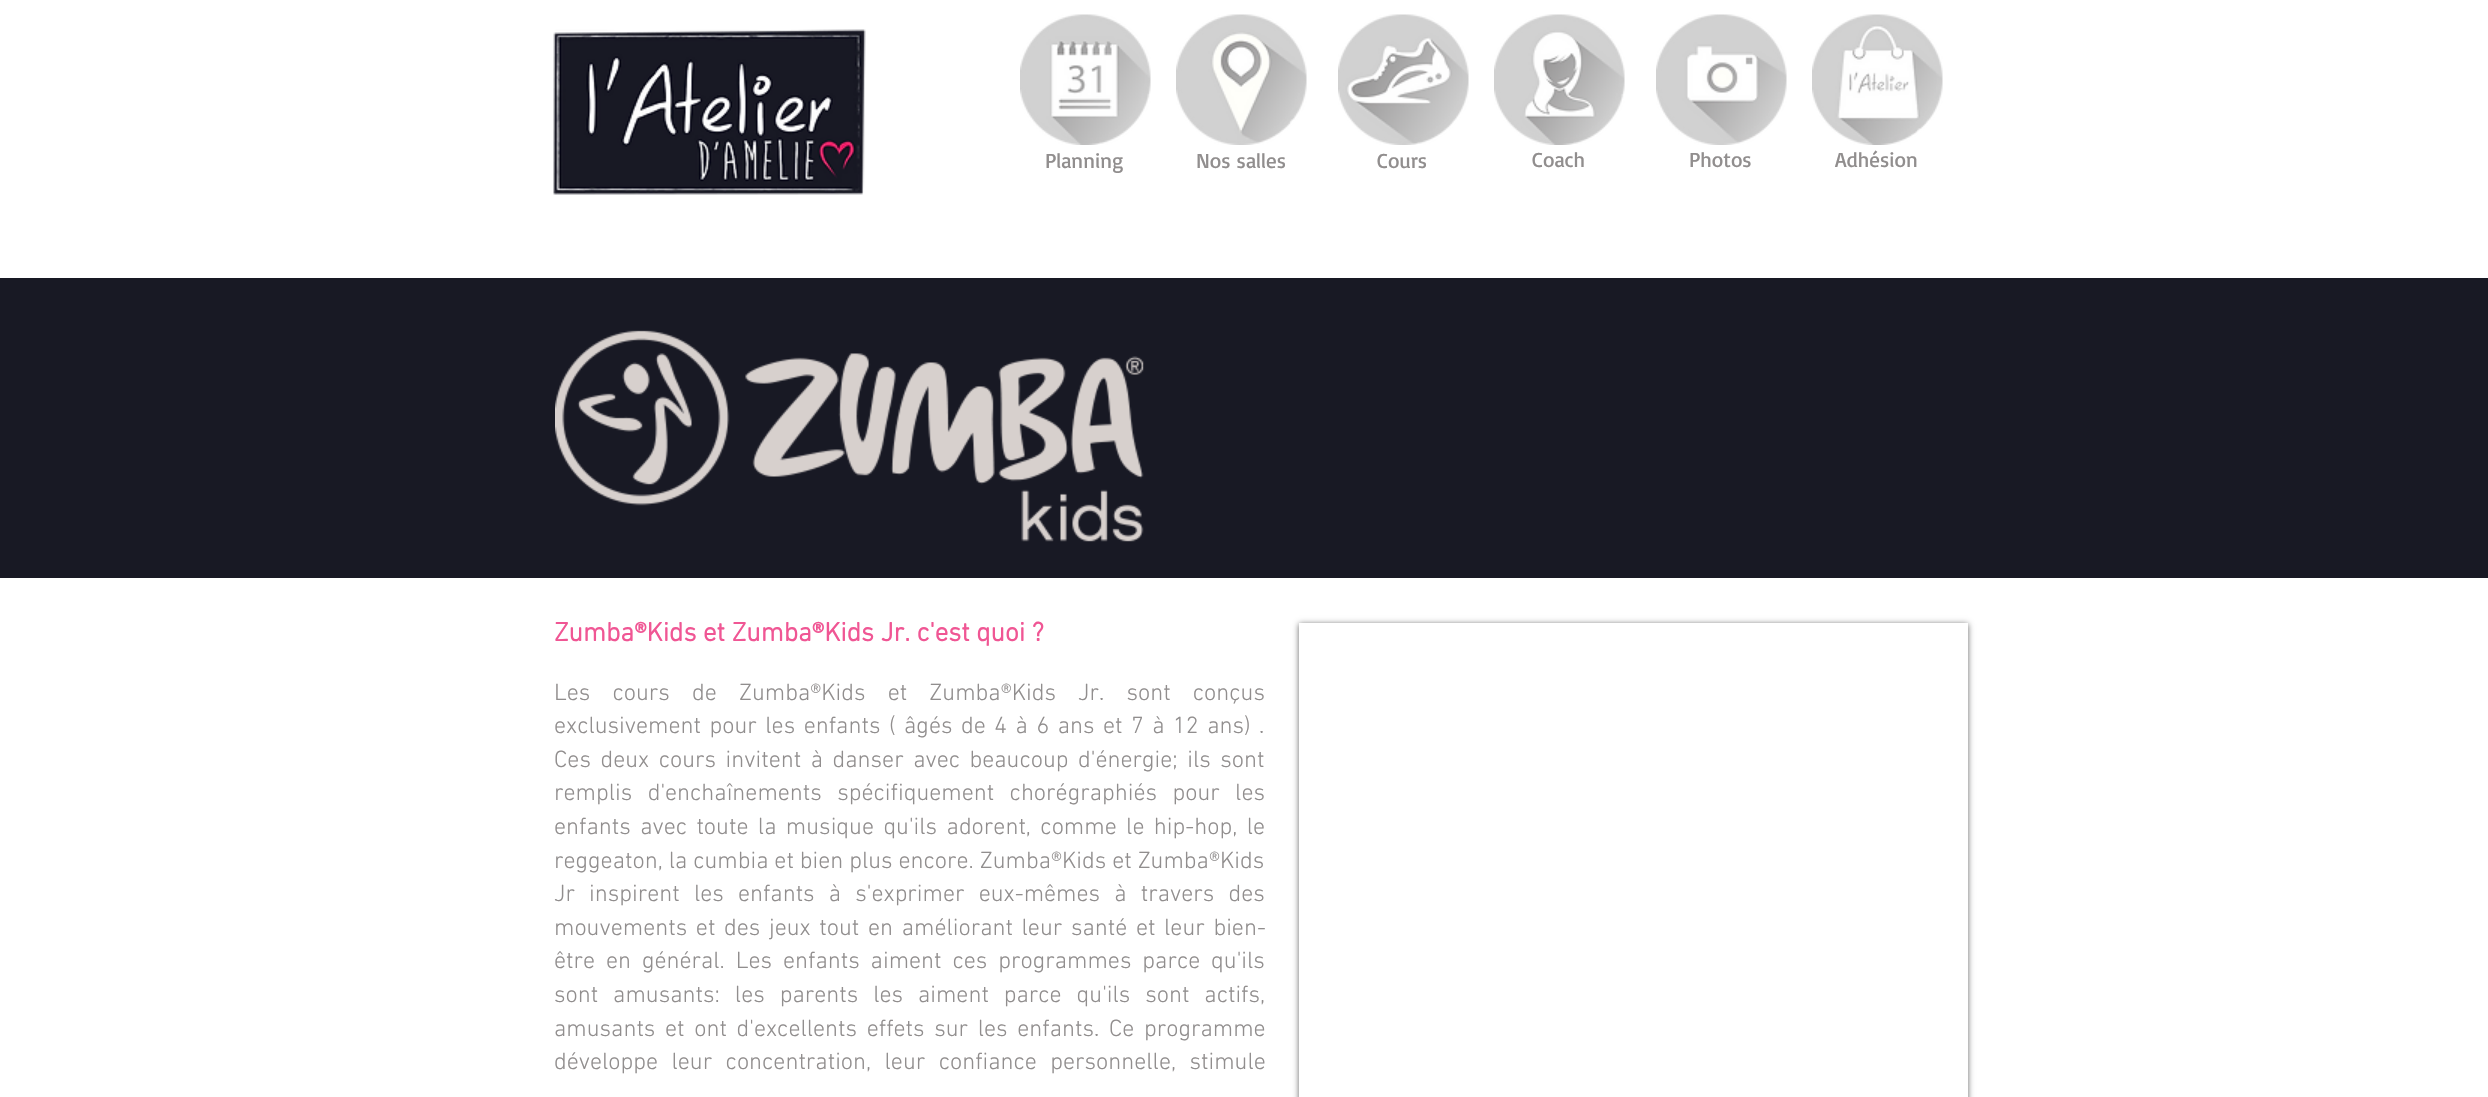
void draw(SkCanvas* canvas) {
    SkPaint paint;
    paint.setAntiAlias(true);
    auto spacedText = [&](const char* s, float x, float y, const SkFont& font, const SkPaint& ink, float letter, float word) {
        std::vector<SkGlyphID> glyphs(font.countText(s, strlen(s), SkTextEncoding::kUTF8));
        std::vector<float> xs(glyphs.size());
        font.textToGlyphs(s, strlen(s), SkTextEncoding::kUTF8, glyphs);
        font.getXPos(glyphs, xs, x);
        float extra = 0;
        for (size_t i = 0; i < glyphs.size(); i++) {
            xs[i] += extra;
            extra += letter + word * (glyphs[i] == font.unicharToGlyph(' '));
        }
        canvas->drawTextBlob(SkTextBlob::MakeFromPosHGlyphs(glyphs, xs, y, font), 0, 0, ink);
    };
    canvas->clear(0xFFFFFFFF);
    canvas->drawImageRect(SkImages::DeferredFromEncodedData(SkData::MakeFromFileName("img1.png")), SkRect::MakeXYWH(553, 29, 313, 166), SkSamplingOptions());
    canvas->drawImageRect(SkImages::DeferredFromEncodedData(SkData::MakeFromFileName("img2.png")), SkRect::MakeXYWH(1020, 14, 131, 131), SkSamplingOptions());
    canvas->drawImageRect(SkImages::DeferredFromEncodedData(SkData::MakeFromFileName("img3.png")), SkRect::MakeXYWH(1176, 14, 131, 131), SkSamplingOptions());
    canvas->drawImageRect(SkImages::DeferredFromEncodedData(SkData::MakeFromFileName("img4.png")), SkRect::MakeXYWH(1338, 14, 131, 131), SkSamplingOptions());
    canvas->drawImageRect(SkImages::DeferredFromEncodedData(SkData::MakeFromFileName("img5.png")), SkRect::MakeXYWH(1494, 14, 131, 131), SkSamplingOptions());
    canvas->drawImageRect(SkImages::DeferredFromEncodedData(SkData::MakeFromFileName("img6.png")), SkRect::MakeXYWH(1656, 14, 131, 131), SkSamplingOptions());
    canvas->drawImageRect(SkImages::DeferredFromEncodedData(SkData::MakeFromFileName("img7.png")), SkRect::MakeXYWH(1812, 14, 131, 131), SkSamplingOptions());
    SkFont font1(fontMgr->matchFamilyStyle("Basic", SkFontStyle::Normal()), 21);
    font1.setSubpixel(true);
    paint.setColor(0xFF918E8E);
    canvas->drawString("Planning", 1045, 168, font1, paint);
    canvas->drawString("Nos salles", 1196, 168, font1, paint);
    canvas->drawString("Cours", 1377, 168, font1, paint);
    canvas->drawString("Coach", 1532, 167, font1, paint);
    canvas->drawString("Photos", 1689, 167, font1, paint);
    canvas->drawString("Adhésion", 1835, 167, font1, paint);
    paint.setColor(0xFF181924);
    canvas->drawRect(SkRect::MakeXYWH(0, 278, 2488, 300), paint);
    canvas->drawImageRect(SkImages::DeferredFromEncodedData(SkData::MakeFromFileName("img8.png")), SkRect::MakeXYWH(555, 330, 589, 212), SkSamplingOptions());
    SkFont font2(fontMgr->matchFamilyStyle("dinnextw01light", SkFontStyle::Bold()), 27);
    font2.setSubpixel(true);
    paint.setColor(0xFFF05694);
    canvas->drawString("Zumba®Kids et Zumba®Kids Jr. c'est quoi ?", 554, 641, font2, paint);
    SkFont font3(fontMgr->matchFamilyStyle("dinnextw01light", SkFontStyle(300, SkFontStyle::kNormal_Width, SkFontStyle::kUpright_Slant)), 24);
    font3.setSubpixel(true);
    paint.setColor(0xFF918E8E);
    spacedText("Les cours de Zumba®Kids et Zumba®Kids Jr. sont conçus", 554, 700, font3, paint, 0, 16.25f);
    spacedText("exclusivement pour les enfants ( âgés de 4 à 6 ans et 7 à 12 ans) .", 554, 733, font3, paint, 0, 2.6f);
    spacedText("Ces deux cours invitent à danser avec beaucoup d'énergie; ils sont", 554, 767, font3, paint, 0, 3.6f);
    spacedText("remplis d'enchaînements spécifiquement chorégraphiés pour les", 554, 800, font3, paint, 0, 9.5f);
    spacedText("enfants avec toute la musique qu'ils adorent, comme le hip-hop, le", 554, 834, font3, paint, 0, 3.5f);
    canvas->drawString("reggeaton, la cumbia et bien plus encore. Zumba®Kids et Zumba®Kids", 554, 868, font3, paint);
    spacedText("Jr inspirent les enfants à s'exprimer eux-mêmes à travers des", 554, 901, font3, paint, 0, 8.25f);
    spacedText("mouvements et des jeux tout en améliorant leur santé et leur bien-", 554, 935, font3, paint, 0, 2.75f);
    spacedText("être en général. Les enfants aiment ces programmes parce qu'ils", 554, 968, font3, paint, 0, 5);
    spacedText("sont amusants: les parents les aiment parce qu'ils sont actifs,", 554, 1002, font3, paint, 0, 9);
    spacedText("amusants et ont d'excellents effets sur les enfants. Ce programme", 554, 1036, font3, paint, 0, 3.75f);
    spacedText("développe leur concentration, leur confiance personnelle, stimule", 554, 1069, font3, paint, 0, 7.5f);
    canvas->save();
    canvas->clipPath(SkPathBuilder(SkPathFillType::kEvenOdd).moveTo(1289, 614).lineTo(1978, 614).lineTo(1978, 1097).lineTo(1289, 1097).close().moveTo(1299, 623).lineTo(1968, 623).lineTo(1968, 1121).lineTo(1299, 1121).close().detach(), true);
    paint.setColor(0x99000000);
    paint.setMaskFilter(SkMaskFilter::MakeBlur(kNormal_SkBlurStyle, 3));
    canvas->drawRect(SkRect::MakeXYWH(1299, 624, 669, 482), paint);
    paint.setMaskFilter(nullptr);
    canvas->restore();
}
